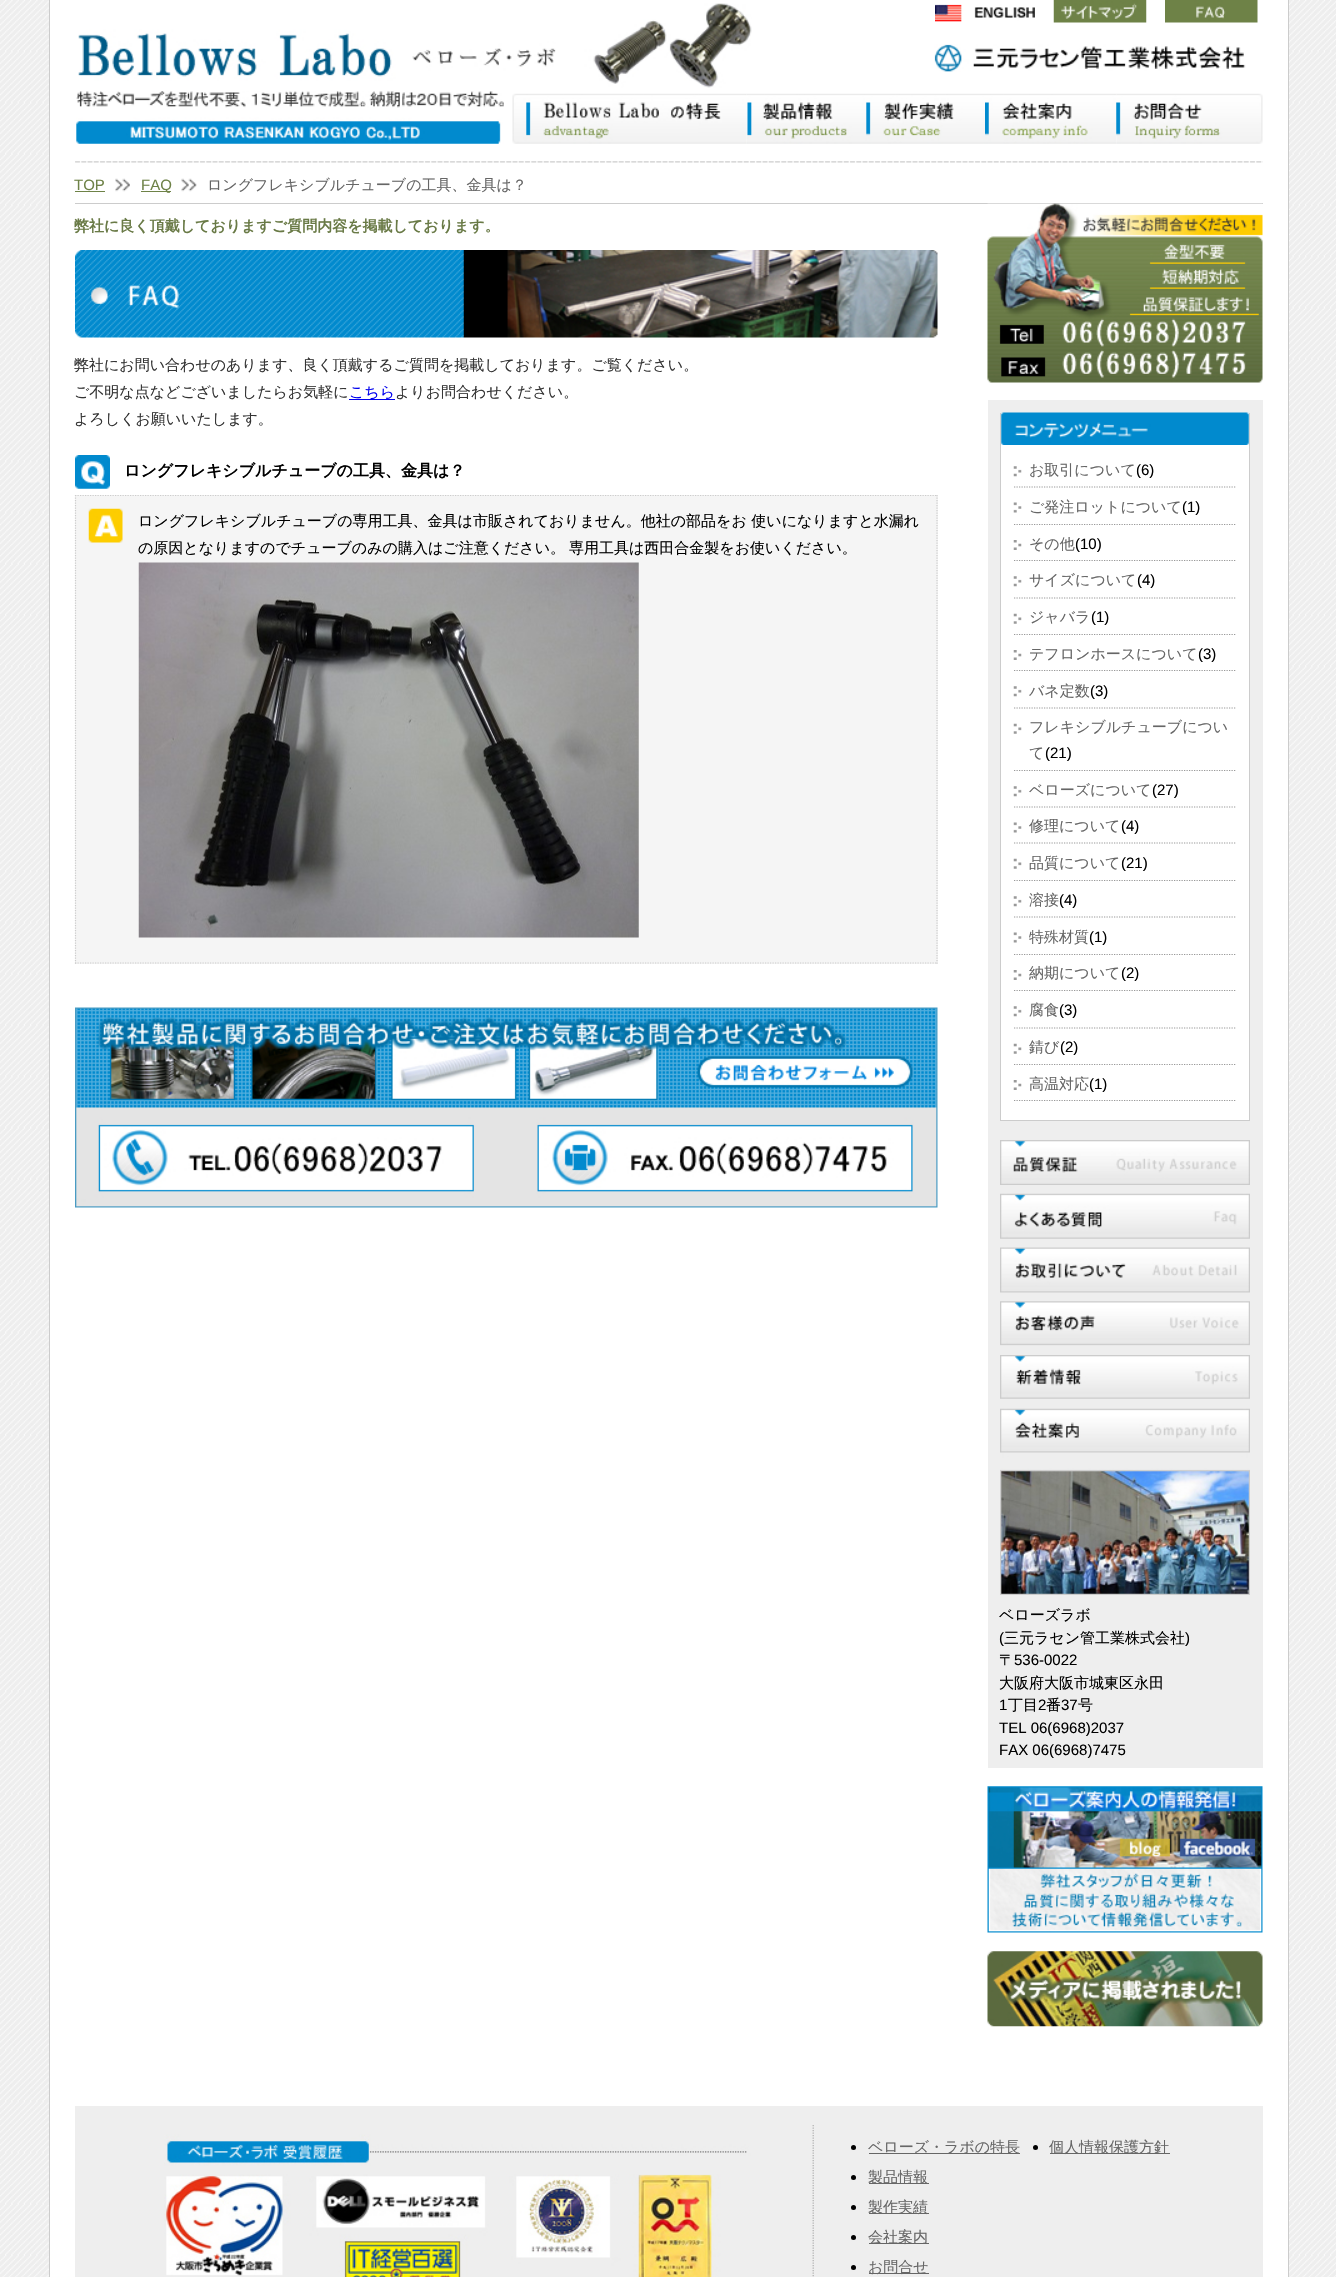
void draw(SkCanvas* canvas) {
    SkPaint paint;
    paint.setAntiAlias(true);
    canvas->clear(0xFFFFFFFF);
    canvas->drawImageRect(SkImages::DeferredFromEncodedData(SkData::MakeFromFileName("img1.png")), SkRect::MakeXYWH(0, 0, 1336, 2277), SkSamplingOptions());
    paint.setColor(0xFFFFFFFF);
    canvas->drawRect(SkRect::MakeXYWH(50, 0, 1238, 2277), paint);
    paint.setColor(0xFFCCCCCC);
    canvas->drawRect(SkRect::MakeXYWH(1288, 0, 1, 2277), paint);
    canvas->drawRect(SkRect::MakeXYWH(49, 0, 1, 2277), paint);
    canvas->drawImageRect(SkImages::DeferredFromEncodedData(SkData::MakeFromFileName("img2.png")), SkRect::MakeXYWH(75, 161, 1188, 2), SkSamplingOptions());
    canvas->drawImageRect(SkImages::DeferredFromEncodedData(SkData::MakeFromFileName("img3.png")), SkRect::MakeXYWH(78, 3, 674, 85), SkSamplingOptions());
    canvas->drawImageRect(SkImages::DeferredFromEncodedData(SkData::MakeFromFileName("img4.png")), SkRect::MakeXYWH(934, 44, 312, 28), SkSamplingOptions());
    canvas->drawImageRect(SkImages::DeferredFromEncodedData(SkData::MakeFromFileName("img5.png")), SkRect::MakeXYWH(935, 4, 100, 18), SkSamplingOptions());
    canvas->drawImageRect(SkImages::DeferredFromEncodedData(SkData::MakeFromFileName("img6.png")), SkRect::MakeXYWH(1053, 0, 94, 23), SkSamplingOptions());
    canvas->drawImageRect(SkImages::DeferredFromEncodedData(SkData::MakeFromFileName("img7.png")), SkRect::MakeXYWH(1165, 0, 93, 23), SkSamplingOptions());
    canvas->drawImageRect(SkImages::DeferredFromEncodedData(SkData::MakeFromFileName("img8.png")), SkRect::MakeXYWH(76, 91, 428, 53), SkSamplingOptions());
    canvas->drawImageRect(SkImages::DeferredFromEncodedData(SkData::MakeFromFileName("img9.png")), SkRect::MakeXYWH(512, 93, 235, 51), SkSamplingOptions());
    canvas->drawImageRect(SkImages::DeferredFromEncodedData(SkData::MakeFromFileName("img10.png")), SkRect::MakeXYWH(746, 93, 119, 51), SkSamplingOptions());
    canvas->drawImageRect(SkImages::DeferredFromEncodedData(SkData::MakeFromFileName("img11.png")), SkRect::MakeXYWH(865, 93, 120, 51), SkSamplingOptions());
    canvas->drawImageRect(SkImages::DeferredFromEncodedData(SkData::MakeFromFileName("img12.png")), SkRect::MakeXYWH(985, 93, 132, 51), SkSamplingOptions());
    canvas->drawImageRect(SkImages::DeferredFromEncodedData(SkData::MakeFromFileName("img13.png")), SkRect::MakeXYWH(1116, 93, 147, 51), SkSamplingOptions());
    canvas->drawRect(SkRect::MakeXYWH(75, 203, 1188, 1), paint);
    SkFont font1(fontMgr->matchFamilyStyle("Liberation Sans", SkFontStyle::Normal()), 15);
    font1.setSubpixel(true);
    paint.setColor(0xFF6E8247);
    canvas->drawString("TOP", 74, 190, font1, paint);
    canvas->drawRect(SkRect::MakeXYWH(75, 191, 30, 1), paint);
    canvas->drawImageRect(SkImages::DeferredFromEncodedData(SkData::MakeFromFileName("img14.png")), SkRect::MakeXYWH(115, 178, 15, 14), SkSamplingOptions());
    canvas->drawRect(SkRect::MakeXYWH(141, 191, 30, 1), paint);
    canvas->drawString("FAQ", 141, 190, font1, paint);
    canvas->drawImageRect(SkImages::DeferredFromEncodedData(SkData::MakeFromFileName("img15.png")), SkRect::MakeXYWH(181, 178, 16, 14), SkSamplingOptions());
    SkFont font2(fontMgr->matchFamilyStyle("WenQuanYi Zen Hei", SkFontStyle(500, SkFontStyle::kNormal_Width, SkFontStyle::kUpright_Slant)), 15);
    font2.setSubpixel(true);
    paint.setColor(0xFF666666);
    canvas->drawString("ロングフレキシブルチューブの工具、金具は？", 207, 190, font2, paint);
    SkFont font3(fontMgr->matchFamilyStyle("WenQuanYi Zen Hei", SkFontStyle::Bold()), 15);
    font3.setSubpixel(true);
    paint.setColor(0xFF697A46);
    canvas->drawString("弊社に良く頂戴しておりますご質問内容を掲載しております。", 74, 231, font3, paint);
    canvas->drawImageRect(SkImages::DeferredFromEncodedData(SkData::MakeFromFileName("img16.png")), SkRect::MakeXYWH(75, 250, 863, 88), SkSamplingOptions());
    paint.setColor(0xFF333333);
    canvas->drawString("弊社にお問い合わせのあります、良く頂戴するご質問を掲載しております。ご覧ください。", 74, 370, font2, paint);
    canvas->drawString("ご不明な点などございましたらお気軽に", 74, 397, font2, paint);
    paint.setColor(0xFF0000EE);
    canvas->drawRect(SkRect::MakeXYWH(349, 399, 46, 1), paint);
    canvas->drawString("こちら", 349, 397, font2, paint);
    paint.setColor(0xFF333333);
    canvas->drawString("よりお問合わせください。", 395, 397, font2, paint);
    canvas->drawString("よろしくお願いいたします。", 74, 424, font2, paint);
    canvas->drawImageRect(SkImages::DeferredFromEncodedData(SkData::MakeFromFileName("img17.png")), SkRect::MakeXYWH(75, 455, 35, 34), SkSamplingOptions());
    SkFont font4(fontMgr->matchFamilyStyle("WenQuanYi Zen Hei", SkFontStyle::Bold()), 16);
    font4.setSubpixel(true);
    paint.setColor(0xFF000000);
    canvas->drawString("ロングフレキシブルチューブの工具、金具は？", 124, 476, font4, paint);
    paint.setColor(0xFFF5F5F5);
    canvas->drawRect(SkRect::MakeXYWH(75, 495, 863, 469), paint);
    canvas->drawImageRect(SkImages::DeferredFromEncodedData(SkData::MakeFromFileName("img18.png")), SkRect::MakeXYWH(88, 508, 35, 35), SkSamplingOptions());
    paint.setStyle(SkPaint::kStroke_Style);
    paint.setStrokeWidth(1.2f);
    paint.setColor(0xFFCCCCCC);
    paint.setPathEffect(SkDashPathEffect::Make({{1.25f, 1.25f}}, 0));
    canvas->drawPath(SkPathBuilder().moveTo(75, 495.5f).lineTo(937.5f, 495.5f).detach(), paint);
    paint.setPathEffect(nullptr);
    paint.setPathEffect(SkDashPathEffect::Make({{1.25f, 1.25f}}, 0));
    canvas->drawPath(SkPathBuilder().moveTo(937, 495).lineTo(937, 964).detach(), paint);
    paint.setPathEffect(nullptr);
    paint.setPathEffect(SkDashPathEffect::Make({{1.25f, 1.25f}}, 0));
    canvas->drawPath(SkPathBuilder().moveTo(75, 963).lineTo(937.5f, 963).detach(), paint);
    paint.setPathEffect(nullptr);
    paint.setPathEffect(SkDashPathEffect::Make({{1.25f, 1.25f}}, 0));
    canvas->drawPath(SkPathBuilder().moveTo(75.5f, 495).lineTo(75.5f, 964).detach(), paint);
    paint.setPathEffect(nullptr);
    paint.setStyle(SkPaint::kFill_Style);
    paint.setColor(0xFF000000);
    canvas->drawString("ロングフレキシブルチューブの専用工具、金具は市販されておりません。他社の部品をお 使いになりますと水漏れ", 138, 526, font2, paint);
    canvas->drawString("の原因となりますのでチューブのみの購入はご注意ください。", 138, 553, font2, paint);
    canvas->drawString("専用工具は西田合金製をお使いください。", 569, 553, font2, paint);
    canvas->drawImageRect(SkImages::DeferredFromEncodedData(SkData::MakeFromFileName("img19.png")), SkRect::MakeXYWH(138, 562, 501, 376), SkSamplingOptions());
    canvas->drawImageRect(SkImages::DeferredFromEncodedData(SkData::MakeFromFileName("img20.png")), SkRect::MakeXYWH(75, 1007, 863, 201), SkSamplingOptions());
    canvas->drawImageRect(SkImages::DeferredFromEncodedData(SkData::MakeFromFileName("img21.png")), SkRect::MakeXYWH(987, 203, 276, 180), SkSamplingOptions());
    paint.setColor(0xFFEEEEEE);
    canvas->drawRect(SkRect::MakeXYWH(988, 400, 275, 1368), paint);
    paint.setColor(0xFFFFFFFF);
    canvas->drawRect(SkRect::MakeXYWH(1001, 413, 248, 707), paint);
    paint.setColor(0xFFCCCCCC);
    canvas->drawRect(SkRect::MakeXYWH(1249, 413, 1, 708), paint);
    canvas->drawRect(SkRect::MakeXYWH(1000, 1120, 250, 1), paint);
    canvas->drawRect(SkRect::MakeXYWH(1000, 413, 1, 708), paint);
    canvas->drawImageRect(SkImages::DeferredFromEncodedData(SkData::MakeFromFileName("img22.png")), SkRect::MakeXYWH(1001, 412, 248, 33), SkSamplingOptions());
    canvas->drawImageRect(SkImages::DeferredFromEncodedData(SkData::MakeFromFileName("img23.png")), SkRect::MakeXYWH(1013, 466, 9, 11), SkSamplingOptions());
    paint.setStyle(SkPaint::kStroke_Style);
    paint.setColor(0xFF999999);
    paint.setPathEffect(SkDashPathEffect::Make({{1.25f, 1.25f}}, 0));
    canvas->drawPath(SkPathBuilder().moveTo(1014, 487).lineTo(1236, 487).detach(), paint);
    paint.setPathEffect(nullptr);
    paint.setStyle(SkPaint::kFill_Style);
    paint.setColor(0xFF666666);
    canvas->drawString("お取引について", 1029, 475, font2, paint);
    paint.setColor(0xFF000000);
    canvas->drawString("(6)", 1136, 475, font1, paint);
    canvas->drawImageRect(SkImages::DeferredFromEncodedData(SkData::MakeFromFileName("img24.png")), SkRect::MakeXYWH(1013, 502, 9, 11), SkSamplingOptions());
    paint.setStyle(SkPaint::kStroke_Style);
    paint.setColor(0xFF999999);
    paint.setPathEffect(SkDashPathEffect::Make({{1.25f, 1.25f}}, 0));
    canvas->drawPath(SkPathBuilder().moveTo(1014, 524.5f).lineTo(1236, 524.5f).detach(), paint);
    paint.setPathEffect(nullptr);
    paint.setStyle(SkPaint::kFill_Style);
    paint.setColor(0xFF666666);
    canvas->drawString("ご発注ロットについて", 1029, 512, font2, paint);
    paint.setColor(0xFF000000);
    canvas->drawString("(1)", 1182, 512, font1, paint);
    canvas->drawImageRect(SkImages::DeferredFromEncodedData(SkData::MakeFromFileName("img25.png")), SkRect::MakeXYWH(1013, 540, 9, 10), SkSamplingOptions());
    paint.setStyle(SkPaint::kStroke_Style);
    paint.setColor(0xFF999999);
    paint.setPathEffect(SkDashPathEffect::Make({{1.25f, 1.25f}}, 0));
    canvas->drawPath(SkPathBuilder().moveTo(1014, 560.5f).lineTo(1236, 560.5f).detach(), paint);
    paint.setPathEffect(nullptr);
    paint.setStyle(SkPaint::kFill_Style);
    paint.setColor(0xFF666666);
    canvas->drawString("その他", 1029, 549, font2, paint);
    paint.setColor(0xFF000000);
    canvas->drawString("(10)", 1075, 549, font1, paint);
    canvas->drawImageRect(SkImages::DeferredFromEncodedData(SkData::MakeFromFileName("img23.png")), SkRect::MakeXYWH(1013, 576, 9, 11), SkSamplingOptions());
    paint.setStyle(SkPaint::kStroke_Style);
    paint.setColor(0xFF999999);
    paint.setPathEffect(SkDashPathEffect::Make({{1.25f, 1.25f}}, 0));
    canvas->drawPath(SkPathBuilder().moveTo(1014, 598).lineTo(1236, 598).detach(), paint);
    paint.setPathEffect(nullptr);
    paint.setStyle(SkPaint::kFill_Style);
    paint.setColor(0xFF666666);
    canvas->drawString("サイズについて", 1029, 585, font2, paint);
    paint.setColor(0xFF000000);
    canvas->drawString("(4)", 1137, 585, font1, paint);
    canvas->drawImageRect(SkImages::DeferredFromEncodedData(SkData::MakeFromFileName("img26.png")), SkRect::MakeXYWH(1013, 613, 9, 11), SkSamplingOptions());
    paint.setStyle(SkPaint::kStroke_Style);
    paint.setColor(0xFF999999);
    paint.setPathEffect(SkDashPathEffect::Make({{1.25f, 1.25f}}, 0));
    canvas->drawPath(SkPathBuilder().moveTo(1014, 634.5f).lineTo(1236, 634.5f).detach(), paint);
    paint.setPathEffect(nullptr);
    paint.setStyle(SkPaint::kFill_Style);
    paint.setColor(0xFF666666);
    canvas->drawString("ジャバラ", 1029, 622, font2, paint);
    paint.setColor(0xFF000000);
    canvas->drawString("(1)", 1091, 622, font1, paint);
    canvas->drawImageRect(SkImages::DeferredFromEncodedData(SkData::MakeFromFileName("img25.png")), SkRect::MakeXYWH(1013, 650, 9, 10), SkSamplingOptions());
    paint.setStyle(SkPaint::kStroke_Style);
    paint.setColor(0xFF999999);
    paint.setPathEffect(SkDashPathEffect::Make({{1.25f, 1.25f}}, 0));
    canvas->drawPath(SkPathBuilder().moveTo(1014, 670.5f).lineTo(1236, 670.5f).detach(), paint);
    paint.setPathEffect(nullptr);
    paint.setStyle(SkPaint::kFill_Style);
    paint.setColor(0xFF666666);
    canvas->drawString("テフロンホースについて", 1029, 659, font2, paint);
    paint.setColor(0xFF000000);
    canvas->drawString("(3)", 1198, 659, font1, paint);
    canvas->drawImageRect(SkImages::DeferredFromEncodedData(SkData::MakeFromFileName("img23.png")), SkRect::MakeXYWH(1013, 686, 9, 11), SkSamplingOptions());
    paint.setStyle(SkPaint::kStroke_Style);
    paint.setColor(0xFF999999);
    paint.setPathEffect(SkDashPathEffect::Make({{1.25f, 1.25f}}, 0));
    canvas->drawPath(SkPathBuilder().moveTo(1014, 708).lineTo(1236, 708).detach(), paint);
    paint.setPathEffect(nullptr);
    paint.setStyle(SkPaint::kFill_Style);
    paint.setColor(0xFF666666);
    canvas->drawString("バネ定数", 1029, 696, font2, paint);
    paint.setColor(0xFF000000);
    canvas->drawString("(3)", 1090, 696, font1, paint);
    canvas->drawImageRect(SkImages::DeferredFromEncodedData(SkData::MakeFromFileName("img26.png")), SkRect::MakeXYWH(1013, 723, 9, 11), SkSamplingOptions());
    paint.setStyle(SkPaint::kStroke_Style);
    paint.setColor(0xFF999999);
    paint.setPathEffect(SkDashPathEffect::Make({{1.25f, 1.25f}}, 0));
    canvas->drawPath(SkPathBuilder().moveTo(1014, 770.5f).lineTo(1236, 770.5f).detach(), paint);
    paint.setPathEffect(nullptr);
    paint.setStyle(SkPaint::kFill_Style);
    paint.setColor(0xFF666666);
    canvas->drawString("フレキシブルチューブについ", 1029, 732, font2, paint);
    canvas->drawString("て", 1029, 758, font2, paint);
    paint.setColor(0xFF000000);
    canvas->drawString("(21)", 1045, 758, font1, paint);
    canvas->drawImageRect(SkImages::DeferredFromEncodedData(SkData::MakeFromFileName("img23.png")), SkRect::MakeXYWH(1013, 786, 9, 11), SkSamplingOptions());
    paint.setStyle(SkPaint::kStroke_Style);
    paint.setColor(0xFF999999);
    paint.setPathEffect(SkDashPathEffect::Make({{1.25f, 1.25f}}, 0));
    canvas->drawPath(SkPathBuilder().moveTo(1014, 807).lineTo(1236, 807).detach(), paint);
    paint.setPathEffect(nullptr);
    paint.setStyle(SkPaint::kFill_Style);
    paint.setColor(0xFF666666);
    canvas->drawString("ベローズについて", 1029, 795, font2, paint);
    paint.setColor(0xFF000000);
    canvas->drawString("(27)", 1152, 795, font1, paint);
    canvas->drawImageRect(SkImages::DeferredFromEncodedData(SkData::MakeFromFileName("img24.png")), SkRect::MakeXYWH(1013, 822, 9, 11), SkSamplingOptions());
    paint.setStyle(SkPaint::kStroke_Style);
    paint.setColor(0xFF999999);
    paint.setPathEffect(SkDashPathEffect::Make({{1.25f, 1.25f}}, 0));
    canvas->drawPath(SkPathBuilder().moveTo(1014, 843).lineTo(1236, 843).detach(), paint);
    paint.setPathEffect(nullptr);
    paint.setStyle(SkPaint::kFill_Style);
    paint.setColor(0xFF666666);
    canvas->drawString("修理について", 1029, 831, font2, paint);
    paint.setColor(0xFF000000);
    canvas->drawString("(4)", 1121, 831, font1, paint);
    canvas->drawImageRect(SkImages::DeferredFromEncodedData(SkData::MakeFromFileName("img26.png")), SkRect::MakeXYWH(1013, 858, 9, 11), SkSamplingOptions());
    paint.setStyle(SkPaint::kStroke_Style);
    paint.setColor(0xFF999999);
    paint.setPathEffect(SkDashPathEffect::Make({{1.25f, 1.25f}}, 0));
    canvas->drawPath(SkPathBuilder().moveTo(1014, 880.5f).lineTo(1236, 880.5f).detach(), paint);
    paint.setPathEffect(nullptr);
    paint.setStyle(SkPaint::kFill_Style);
    paint.setColor(0xFF666666);
    canvas->drawString("品質について", 1029, 868, font2, paint);
    paint.setColor(0xFF000000);
    canvas->drawString("(21)", 1121, 868, font1, paint);
    canvas->drawImageRect(SkImages::DeferredFromEncodedData(SkData::MakeFromFileName("img23.png")), SkRect::MakeXYWH(1013, 896, 9, 11), SkSamplingOptions());
    paint.setStyle(SkPaint::kStroke_Style);
    paint.setColor(0xFF999999);
    paint.setPathEffect(SkDashPathEffect::Make({{1.25f, 1.25f}}, 0));
    canvas->drawPath(SkPathBuilder().moveTo(1014, 917).lineTo(1236, 917).detach(), paint);
    paint.setPathEffect(nullptr);
    paint.setStyle(SkPaint::kFill_Style);
    paint.setColor(0xFF666666);
    canvas->drawString("溶接", 1029, 905, font2, paint);
    paint.setColor(0xFF000000);
    canvas->drawString("(4)", 1059, 905, font1, paint);
    canvas->drawImageRect(SkImages::DeferredFromEncodedData(SkData::MakeFromFileName("img24.png")), SkRect::MakeXYWH(1013, 932, 9, 11), SkSamplingOptions());
    paint.setStyle(SkPaint::kStroke_Style);
    paint.setColor(0xFF999999);
    paint.setPathEffect(SkDashPathEffect::Make({{1.25f, 1.25f}}, 0));
    canvas->drawPath(SkPathBuilder().moveTo(1014, 954.5f).lineTo(1236, 954.5f).detach(), paint);
    paint.setPathEffect(nullptr);
    paint.setStyle(SkPaint::kFill_Style);
    paint.setColor(0xFF666666);
    canvas->drawString("特殊材質", 1029, 942, font2, paint);
    paint.setColor(0xFF000000);
    canvas->drawString("(1)", 1089, 942, font1, paint);
    canvas->drawImageRect(SkImages::DeferredFromEncodedData(SkData::MakeFromFileName("img25.png")), SkRect::MakeXYWH(1013, 970, 9, 10), SkSamplingOptions());
    paint.setStyle(SkPaint::kStroke_Style);
    paint.setColor(0xFF999999);
    paint.setPathEffect(SkDashPathEffect::Make({{1.25f, 1.25f}}, 0));
    canvas->drawPath(SkPathBuilder().moveTo(1014, 990.5f).lineTo(1236, 990.5f).detach(), paint);
    paint.setPathEffect(nullptr);
    paint.setStyle(SkPaint::kFill_Style);
    paint.setColor(0xFF666666);
    canvas->drawString("納期について", 1029, 978, font2, paint);
    paint.setColor(0xFF000000);
    canvas->drawString("(2)", 1121, 978, font1, paint);
    canvas->drawImageRect(SkImages::DeferredFromEncodedData(SkData::MakeFromFileName("img23.png")), SkRect::MakeXYWH(1013, 1006, 9, 11), SkSamplingOptions());
    paint.setStyle(SkPaint::kStroke_Style);
    paint.setColor(0xFF999999);
    paint.setPathEffect(SkDashPathEffect::Make({{1.25f, 1.25f}}, 0));
    canvas->drawPath(SkPathBuilder().moveTo(1014, 1028).lineTo(1236, 1028).detach(), paint);
    paint.setPathEffect(nullptr);
    paint.setStyle(SkPaint::kFill_Style);
    paint.setColor(0xFF666666);
    canvas->drawString("腐食", 1029, 1015, font2, paint);
    paint.setColor(0xFF000000);
    canvas->drawString("(3)", 1059, 1015, font1, paint);
    canvas->drawImageRect(SkImages::DeferredFromEncodedData(SkData::MakeFromFileName("img26.png")), SkRect::MakeXYWH(1013, 1043, 9, 11), SkSamplingOptions());
    paint.setStyle(SkPaint::kStroke_Style);
    paint.setColor(0xFF999999);
    paint.setPathEffect(SkDashPathEffect::Make({{1.25f, 1.25f}}, 0));
    canvas->drawPath(SkPathBuilder().moveTo(1014, 1064.5f).lineTo(1236, 1064.5f).detach(), paint);
    paint.setPathEffect(nullptr);
    paint.setStyle(SkPaint::kFill_Style);
    paint.setColor(0xFF666666);
    canvas->drawString("錆び", 1029, 1052, font2, paint);
    paint.setColor(0xFF000000);
    canvas->drawString("(2)", 1060, 1052, font1, paint);
    canvas->drawImageRect(SkImages::DeferredFromEncodedData(SkData::MakeFromFileName("img25.png")), SkRect::MakeXYWH(1013, 1080, 9, 10), SkSamplingOptions());
    paint.setStyle(SkPaint::kStroke_Style);
    paint.setColor(0xFF999999);
    paint.setPathEffect(SkDashPathEffect::Make({{1.25f, 1.25f}}, 0));
    canvas->drawPath(SkPathBuilder().moveTo(1014, 1100.5f).lineTo(1236, 1100.5f).detach(), paint);
    paint.setPathEffect(nullptr);
    paint.setStyle(SkPaint::kFill_Style);
    paint.setColor(0xFF666666);
    canvas->drawString("高温対応", 1029, 1089, font2, paint);
    paint.setColor(0xFF000000);
    canvas->drawString("(1)", 1089, 1089, font1, paint);
    canvas->drawImageRect(SkImages::DeferredFromEncodedData(SkData::MakeFromFileName("img27.png")), SkRect::MakeXYWH(1000, 1140, 250, 45), SkSamplingOptions());
    canvas->drawImageRect(SkImages::DeferredFromEncodedData(SkData::MakeFromFileName("img28.png")), SkRect::MakeXYWH(1000, 1193, 250, 46), SkSamplingOptions());
    canvas->drawImageRect(SkImages::DeferredFromEncodedData(SkData::MakeFromFileName("img29.png")), SkRect::MakeXYWH(1000, 1247, 250, 46), SkSamplingOptions());
    canvas->drawImageRect(SkImages::DeferredFromEncodedData(SkData::MakeFromFileName("img30.png")), SkRect::MakeXYWH(1000, 1301, 250, 45), SkSamplingOptions());
    canvas->drawImageRect(SkImages::DeferredFromEncodedData(SkData::MakeFromFileName("img31.png")), SkRect::MakeXYWH(1000, 1355, 250, 44), SkSamplingOptions());
    canvas->drawImageRect(SkImages::DeferredFromEncodedData(SkData::MakeFromFileName("img32.png")), SkRect::MakeXYWH(1000, 1408, 250, 187), SkSamplingOptions());
    canvas->drawString("ベローズラボ", 999, 1620, font2, paint);
    canvas->drawString("(", 999, 1643, font1, paint);
    canvas->drawString("三元ラセン管工業株式会社", 1004, 1643, font2, paint);
    canvas->drawString(")", 1185, 1643, font1, paint);
    canvas->drawString("〒", 999, 1665, font2, paint);
    canvas->drawString("536-0022", 1014, 1665, font1, paint);
    canvas->drawString("大阪府大阪市城東区永田", 999, 1688, font2, paint);
    canvas->drawString("1", 999, 1710, font1, paint);
    canvas->drawString("丁目", 1008, 1710, font2, paint);
    canvas->drawString("2", 1038, 1710, font1, paint);
    canvas->drawString("番", 1046, 1710, font2, paint);
    canvas->drawString("37", 1061, 1710, font1, paint);
    canvas->drawString("号", 1078, 1710, font2, paint);
    canvas->drawString("TEL 06(6968)2037", 999, 1733, font1, paint);
    canvas->drawString("FAX 06(6968)7475", 999, 1755, font1, paint);
    canvas->drawImageRect(SkImages::DeferredFromEncodedData(SkData::MakeFromFileName("img33.png")), SkRect::MakeXYWH(987, 1786, 276, 147), SkSamplingOptions());
    canvas->drawImageRect(SkImages::DeferredFromEncodedData(SkData::MakeFromFileName("img34.png")), SkRect::MakeXYWH(987, 1951, 276, 76), SkSamplingOptions());
    paint.setColor(0xFFEEEEEE);
    canvas->drawRect(SkRect::MakeXYWH(75, 2106, 1188, 171), paint);
    paint.setStyle(SkPaint::kStroke_Style);
    paint.setColor(0xFF999999);
    paint.setPathEffect(SkDashPathEffect::Make({{1.25f, 1.25f}}, 0));
    canvas->drawPath(SkPathBuilder().moveTo(813, 2125).lineTo(813, 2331).detach(), paint);
    paint.setPathEffect(nullptr);
    canvas->drawImageRect(SkImages::DeferredFromEncodedData(SkData::MakeFromFileName("img35.png")), SkRect::MakeXYWH(164, 2125, 649, 152), SkSamplingOptions());
    paint.setStyle(SkPaint::kFill_Style);
    paint.setColor(0xFF000000);
    canvas->drawCircle(853.5f, 2147.5f, 2.5f, paint);
    paint.setColor(0xFF666666);
    canvas->drawRect(SkRect::MakeXYWH(869, 2153, 151, 1), paint);
    canvas->drawString("ベローズ・ラボの特長", 868, 2152, font2, paint);
    paint.setColor(0xFF000000);
    canvas->drawCircle(853.5f, 2177.5f, 2.5f, paint);
    paint.setColor(0xFF666666);
    canvas->drawRect(SkRect::MakeXYWH(869, 2183, 60, 1), paint);
    canvas->drawString("製品情報", 868, 2182, font2, paint);
    paint.setColor(0xFF000000);
    canvas->drawCircle(853.5f, 2207.5f, 2.5f, paint);
    paint.setColor(0xFF666666);
    canvas->drawRect(SkRect::MakeXYWH(869, 2213, 60, 1), paint);
    canvas->drawString("製作実績", 868, 2212, font2, paint);
    paint.setColor(0xFF000000);
    canvas->drawCircle(853.5f, 2237.5f, 2.5f, paint);
    paint.setColor(0xFF666666);
    canvas->drawRect(SkRect::MakeXYWH(869, 2243, 60, 1), paint);
    canvas->drawString("会社案内", 868, 2242, font2, paint);
    paint.setColor(0xFF000000);
    canvas->drawCircle(853.5f, 2267.5f, 2.5f, paint);
    paint.setColor(0xFF666666);
    canvas->drawRect(SkRect::MakeXYWH(869, 2273, 60, 1), paint);
    canvas->drawString("お問合せ", 868, 2272, font2, paint);
    paint.setColor(0xFF000000);
    canvas->drawCircle(1035.5f, 2147.5f, 2.5f, paint);
    paint.setColor(0xFF666666);
    canvas->drawRect(SkRect::MakeXYWH(1050, 2153, 120, 1), paint);
    canvas->drawString("個人情報保護方針", 1049, 2152, font2, paint);
}
